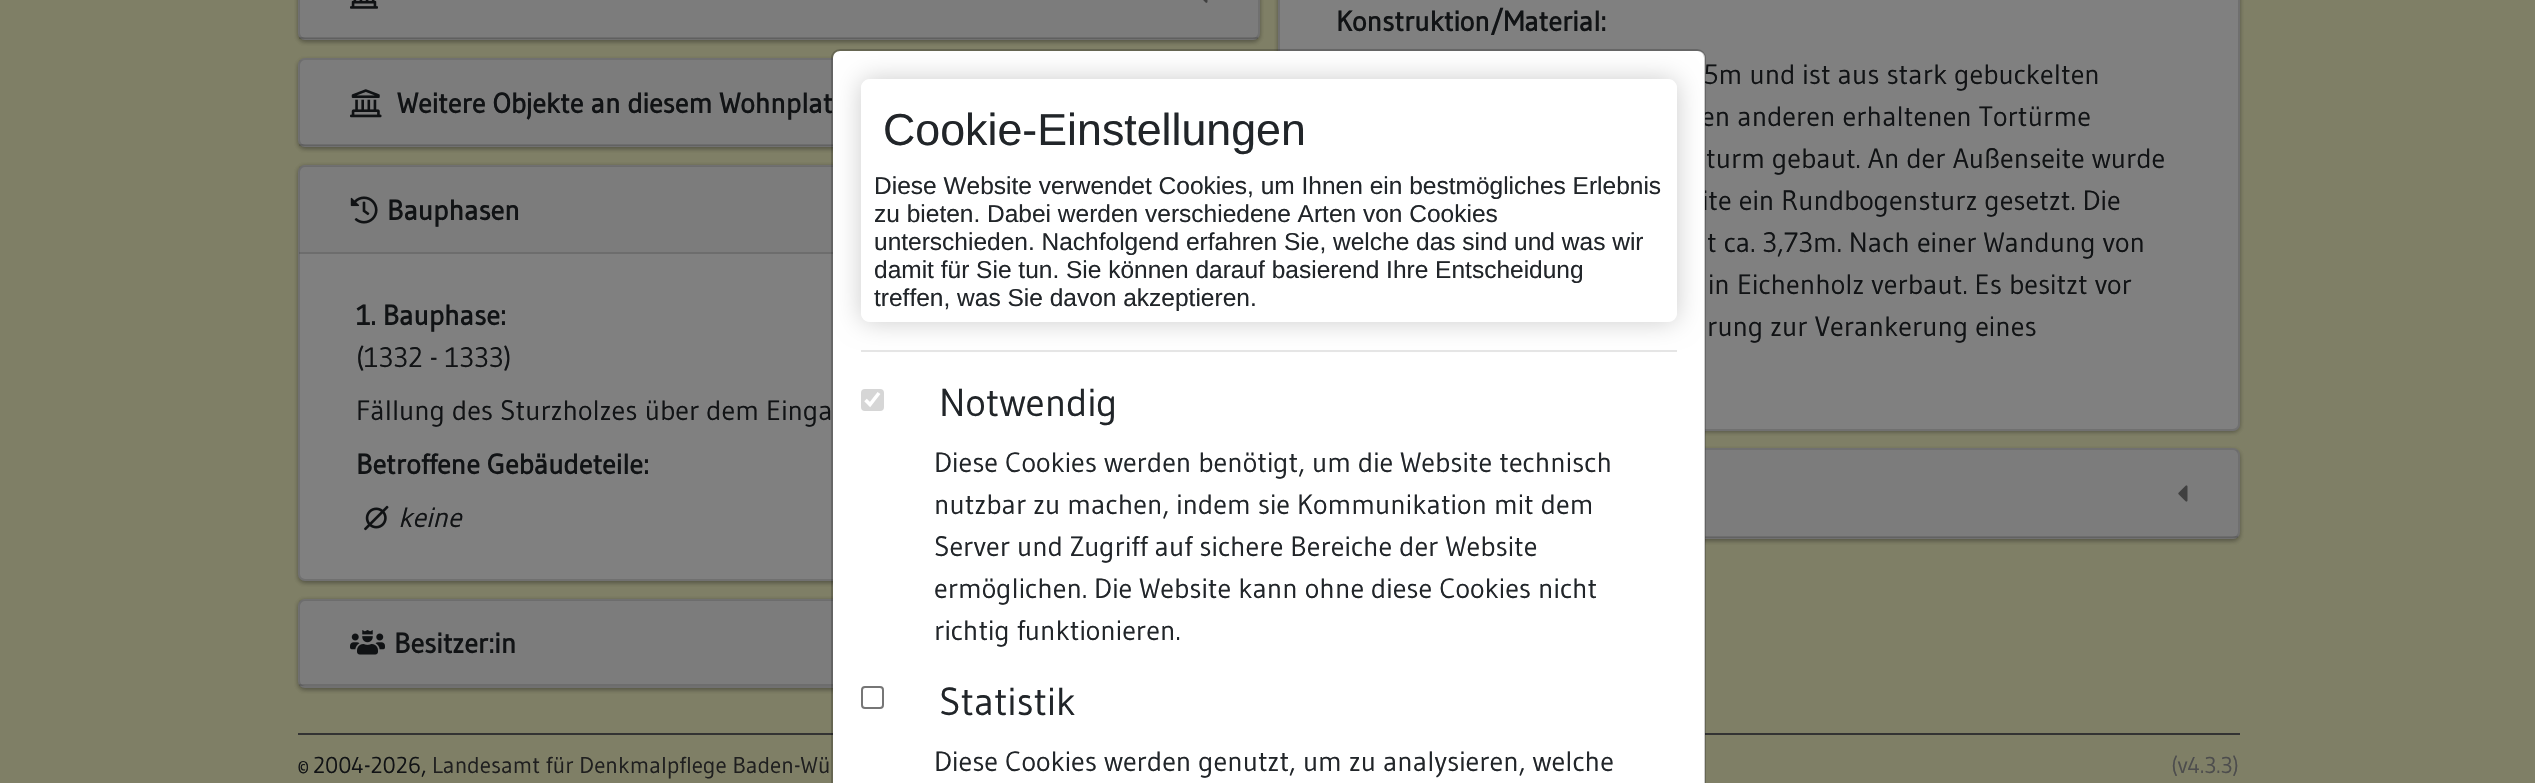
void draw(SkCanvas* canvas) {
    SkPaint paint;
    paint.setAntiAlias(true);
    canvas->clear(0xFF7F7F66);
    paint.setColor(0x3D000000);
    paint.setMaskFilter(SkMaskFilter::MakeBlur(kNormal_SkBlurStyle, 2));
    canvas->drawRoundRect(SkRect::MakeXYWH(298, -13, 962, 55), 7, 7, paint);
    paint.setMaskFilter(nullptr);
    paint.setColor(0x1F000000);
    paint.setMaskFilter(SkMaskFilter::MakeBlur(kNormal_SkBlurStyle, 2.5f));
    canvas->drawRoundRect(SkRect::MakeXYWH(298, -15, 962, 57), 7, 7, paint);
    paint.setMaskFilter(nullptr);
    paint.setColor(0xFF808080);
    canvas->drawRoundRect(SkRect::MakeXYWH(298, -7, 962, 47), 7, 7, paint);
    paint.setStyle(SkPaint::kStroke_Style);
    paint.setStrokeWidth(2);
    paint.setColor(0x1F000000);
    canvas->drawRoundRect(SkRect::MakeXYWH(299, -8, 960, 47), 6, 6, paint);
    paint.setStyle(SkPaint::kFill_Style);
    paint.setColor(0x08000000);
    canvas->drawRect(SkRect::MakeXYWH(299, 0, 959, 39), paint);
    paint.setColor(0x1F000000);
    canvas->drawRect(SkRect::MakeXYWH(299, 37, 959, 2), paint);
    canvas->drawImageRect(SkImages::DeferredFromEncodedData(SkData::MakeFromFileName("img1.png")), SkRect::MakeXYWH(350, 0, 28, 9), SkSamplingOptions());
    canvas->drawImageRect(SkImages::DeferredFromEncodedData(SkData::MakeFromFileName("img2.png")), SkRect::MakeXYWH(1203, 0, 5, 3), SkSamplingOptions());
    paint.setColor(0x3D000000);
    paint.setMaskFilter(SkMaskFilter::MakeBlur(kNormal_SkBlurStyle, 2));
    canvas->drawRoundRect(SkRect::MakeXYWH(298, 60, 962, 89), 7, 7, paint);
    paint.setMaskFilter(nullptr);
    paint.setColor(0x1F000000);
    paint.setMaskFilter(SkMaskFilter::MakeBlur(kNormal_SkBlurStyle, 2.5f));
    canvas->drawRoundRect(SkRect::MakeXYWH(298, 60, 962, 89), 7, 7, paint);
    paint.setMaskFilter(nullptr);
    paint.setColor(0xFF808080);
    canvas->drawRoundRect(SkRect::MakeXYWH(298, 58, 962, 89), 7, 7, paint);
    paint.setStyle(SkPaint::kStroke_Style);
    paint.setColor(0x1F000000);
    canvas->drawRoundRect(SkRect::MakeXYWH(299, 59, 960, 87), 6, 6, paint);
    paint.setStyle(SkPaint::kFill_Style);
    paint.setColor(0x08000000);
    canvas->drawRect(SkRect::MakeXYWH(299, 60, 534, 85), paint);
    paint.setColor(0x1F000000);
    canvas->drawRect(SkRect::MakeXYWH(299, 144, 534, 2), paint);
    canvas->drawImageRect(SkImages::DeferredFromEncodedData(SkData::MakeFromFileName("img3.png")), SkRect::MakeXYWH(350, 89, 32, 29), SkSamplingOptions());
    SkFont font1(fontMgr->matchFamilyStyle("Gudea", SkFontStyle::Bold()), 28);
    font1.setSubpixel(true);
    paint.setColor(0xFF111315);
    canvas->drawString("Weitere Objekte an diesem Wohnplat", 397, 113, font1, paint);
    paint.setColor(0x3D000000);
    paint.setMaskFilter(SkMaskFilter::MakeBlur(kNormal_SkBlurStyle, 2));
    canvas->drawRoundRect(SkRect::MakeXYWH(298, 166, 962, 417), 7, 7, paint);
    paint.setMaskFilter(nullptr);
    paint.setColor(0x1F000000);
    paint.setMaskFilter(SkMaskFilter::MakeBlur(kNormal_SkBlurStyle, 2.5f));
    canvas->drawRoundRect(SkRect::MakeXYWH(298, 166, 962, 417), 7, 7, paint);
    paint.setMaskFilter(nullptr);
    paint.setColor(0xFF808080);
    canvas->drawRoundRect(SkRect::MakeXYWH(298, 165, 962, 416), 7, 7, paint);
    paint.setStyle(SkPaint::kStroke_Style);
    paint.setColor(0x1F000000);
    canvas->drawRoundRect(SkRect::MakeXYWH(299, 166, 960, 414), 6, 6, paint);
    paint.setStyle(SkPaint::kFill_Style);
    paint.setColor(0x08000000);
    canvas->drawRect(SkRect::MakeXYWH(299, 166, 534, 88), paint);
    paint.setColor(0x1F000000);
    canvas->drawRect(SkRect::MakeXYWH(299, 252, 534, 2), paint);
    canvas->drawImageRect(SkImages::DeferredFromEncodedData(SkData::MakeFromFileName("img4.png")), SkRect::MakeXYWH(350, 196, 28, 28), SkSamplingOptions());
    paint.setColor(0xFF111315);
    canvas->drawString("Bauphasen", 387, 220, font1, paint);
    canvas->drawString("1. Bauphase:", 356, 325, font1, paint);
    SkFont font2(fontMgr->matchFamilyStyle("Gudea", SkFontStyle::Normal()), 28);
    font2.setSubpixel(true);
    canvas->drawString("(1332 - 1333)", 356, 367, font2, paint);
    canvas->drawString("Fällung des Sturzholzes über dem Einga", 356, 420, font2, paint);
    canvas->drawString("Betroffene Gebäudeteile:", 356, 474, font1, paint);
    canvas->drawImageRect(SkImages::DeferredFromEncodedData(SkData::MakeFromFileName("img5.png")), SkRect::MakeXYWH(364, 505, 25, 26), SkSamplingOptions());
    SkFont font3(fontMgr->matchFamilyStyle("Gudea", SkFontStyle::Italic()), 28);
    font3.setSubpixel(true);
    canvas->drawString("keine", 398, 527, font3, paint);
    paint.setColor(0x3D000000);
    paint.setMaskFilter(SkMaskFilter::MakeBlur(kNormal_SkBlurStyle, 2));
    canvas->drawRoundRect(SkRect::MakeXYWH(298, 600, 962, 90), 7, 7, paint);
    paint.setMaskFilter(nullptr);
    paint.setColor(0x1F000000);
    paint.setMaskFilter(SkMaskFilter::MakeBlur(kNormal_SkBlurStyle, 2.5f));
    canvas->drawRoundRect(SkRect::MakeXYWH(298, 600, 962, 90), 7, 7, paint);
    paint.setMaskFilter(nullptr);
    paint.setColor(0xFF808080);
    canvas->drawRoundRect(SkRect::MakeXYWH(298, 599, 962, 89), 7, 7, paint);
    paint.setStyle(SkPaint::kStroke_Style);
    paint.setColor(0x1F000000);
    canvas->drawRoundRect(SkRect::MakeXYWH(299, 600, 960, 87), 6, 6, paint);
    paint.setStyle(SkPaint::kFill_Style);
    paint.setColor(0x08000000);
    canvas->drawRect(SkRect::MakeXYWH(299, 600, 534, 86), paint);
    paint.setColor(0x1F000000);
    canvas->drawRect(SkRect::MakeXYWH(299, 684, 534, 2), paint);
    canvas->drawImageRect(SkImages::DeferredFromEncodedData(SkData::MakeFromFileName("img6.png")), SkRect::MakeXYWH(350, 630, 35, 25), SkSamplingOptions());
    paint.setColor(0xFF111315);
    canvas->drawString("Besitzer:in", 394, 653, font1, paint);
    paint.setColor(0x3D000000);
    paint.setMaskFilter(SkMaskFilter::MakeBlur(kNormal_SkBlurStyle, 2));
    canvas->drawRoundRect(SkRect::MakeXYWH(1278, -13, 962, 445), 7, 7, paint);
    paint.setMaskFilter(nullptr);
    paint.setColor(0x1F000000);
    paint.setMaskFilter(SkMaskFilter::MakeBlur(kNormal_SkBlurStyle, 2.5f));
    canvas->drawRoundRect(SkRect::MakeXYWH(1278, -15, 962, 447), 7, 7, paint);
    paint.setMaskFilter(nullptr);
    paint.setColor(0xFF808080);
    canvas->drawRoundRect(SkRect::MakeXYWH(1278, -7, 962, 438), 7, 7, paint);
    paint.setStyle(SkPaint::kStroke_Style);
    paint.setColor(0x1F000000);
    canvas->drawRoundRect(SkRect::MakeXYWH(1279, -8, 960, 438), 6, 6, paint);
    paint.setStyle(SkPaint::kFill_Style);
    paint.setColor(0xFF111315);
    canvas->drawString("Konstruktion/Material:", 1336, 31, font1, paint);
    canvas->drawString("5m und ist aus stark gebuckelten", 1703, 84, font2, paint);
    canvas->drawString("en anderen erhaltenen Tortürme", 1701, 126, font2, paint);
    canvas->drawString("turm gebaut. An der Außenseite wurde", 1706, 168, font2, paint);
    canvas->drawString("ite ein Rundbogensturz gesetzt. Die", 1702, 210, font2, paint);
    canvas->drawString("t ca. 3,73m. Nach einer Wandung von", 1707, 252, font2, paint);
    canvas->drawString("in Eichenholz verbaut. Es besitzt vor", 1708, 294, font2, paint);
    canvas->drawString("rung zur Verankerung eines", 1707, 336, font2, paint);
    paint.setColor(0x3D000000);
    paint.setMaskFilter(SkMaskFilter::MakeBlur(kNormal_SkBlurStyle, 2));
    canvas->drawRoundRect(SkRect::MakeXYWH(1278, 450, 962, 91), 7, 7, paint);
    paint.setMaskFilter(nullptr);
    paint.setColor(0x1F000000);
    paint.setMaskFilter(SkMaskFilter::MakeBlur(kNormal_SkBlurStyle, 2.5f));
    canvas->drawRoundRect(SkRect::MakeXYWH(1278, 450, 962, 91), 7, 7, paint);
    paint.setMaskFilter(nullptr);
    paint.setColor(0xFF808080);
    canvas->drawRoundRect(SkRect::MakeXYWH(1278, 448, 962, 91), 7, 7, paint);
    paint.setStyle(SkPaint::kStroke_Style);
    paint.setColor(0x1F000000);
    canvas->drawRoundRect(SkRect::MakeXYWH(1279, 449, 960, 89), 6, 6, paint);
    paint.setStyle(SkPaint::kFill_Style);
    paint.setColor(0x08000000);
    canvas->drawRect(SkRect::MakeXYWH(1705, 450, 533, 87), paint);
    paint.setColor(0x1F000000);
    canvas->drawRect(SkRect::MakeXYWH(1705, 536, 533, 2), paint);
    canvas->drawImageRect(SkImages::DeferredFromEncodedData(SkData::MakeFromFileName("img7.png")), SkRect::MakeXYWH(2178, 485, 10, 17), SkSamplingOptions());
    paint.setColor(0xFF333333);
    canvas->drawRect(SkRect::MakeXYWH(298, 733, 1942, 2), paint);
    SkFont font4(fontMgr->matchFamilyStyle("Gudea", SkFontStyle::Normal()), 22.9f);
    font4.setSubpixel(true);
    paint.setColor(0xFF111315);
    canvas->drawString("©", 297, 773, font4, paint);
    canvas->drawString("2004-2026,", 313, 773, font4, paint);
    paint.setColor(0xFF1F1F1F);
    canvas->drawString("Landesamt für Denkmalpflege Baden-Wü", 432, 773, font4, paint);
    paint.setColor(0xFF4D4D4D);
    canvas->drawString("(v4.3.3)", 2171, 773, font4, paint);
    paint.setColor(0xFFFFFFFF);
    canvas->drawPath(SkPathBuilder().moveTo(840, 51).lineTo(1698, 51).cubicTo(1702, 51, 1705, 54, 1705, 58).lineTo(1705, 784).lineTo(833, 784).lineTo(833, 58).cubicTo(833, 54, 836, 51, 840, 51).close().detach(), paint);
    paint.setStyle(SkPaint::kStroke_Style);
    paint.setColor(0x33000000);
    canvas->drawRoundRect(SkRect::MakeXYWH(832, 50, 873, 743), 8, 8, paint);
    canvas->save();
    canvas->clipPath(SkPathBuilder(SkPathFillType::kEvenOdd).moveTo(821, 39).lineTo(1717, 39).lineTo(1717, 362).lineTo(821, 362).close().moveTo(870, 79).lineTo(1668, 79).cubicTo(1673, 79, 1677, 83, 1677, 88).lineTo(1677, 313).cubicTo(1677, 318, 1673, 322, 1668, 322).lineTo(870, 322).cubicTo(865, 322, 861, 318, 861, 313).lineTo(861, 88).cubicTo(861, 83, 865, 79, 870, 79).close().detach(), true);
    paint.setStyle(SkPaint::kFill_Style);
    paint.setMaskFilter(SkMaskFilter::MakeBlur(kNormal_SkBlurStyle, 13));
    canvas->drawRoundRect(SkRect::MakeXYWH(861, 79, 816, 243), 9, 9, paint);
    paint.setMaskFilter(nullptr);
    canvas->restore();
    paint.setColor(0xCCFFFFFF);
    canvas->drawRoundRect(SkRect::MakeXYWH(861, 79, 816, 243), 9, 9, paint);
    SkFont font5(fontMgr->matchFamilyStyle("Liberation Sans", SkFontStyle::Normal()), 44.75f);
    font5.setSubpixel(true);
    paint.setColor(0xFF212529);
    canvas->drawString("Cookie-Einstellungen", 883, 145, font5, paint);
    SkFont font6(fontMgr->matchFamilyStyle("Liberation Sans", SkFontStyle::Normal()), 24.5f);
    font6.setSubpixel(true);
    canvas->drawString("Diese Website verwendet Cookies, um Ihnen ein bestmögliches Erlebnis", 874, 194, font6, paint);
    canvas->drawString("zu bieten. Dabei werden verschiedene Arten von Cookies", 874, 222, font6, paint);
    canvas->drawString("unterschieden. Nachfolgend erfahren Sie, welche das sind und was wir", 874, 250, font6, paint);
    canvas->drawString("damit für Sie tun. Sie können darauf basierend Ihre Entscheidung", 874, 278, font6, paint);
    canvas->drawString("treffen, was Sie davon akzeptieren.", 874, 306, font6, paint);
    paint.setColor(0xFFE5E5E5);
    canvas->drawRect(SkRect::MakeXYWH(861, 350, 816, 2), paint);
    paint.setColor(0xFFD6D6D6);
    canvas->drawRoundRect(SkRect::MakeXYWH(861, 389, 23, 22), 4, 4, paint);
    paint.setStyle(SkPaint::kStroke_Style);
    paint.setStrokeWidth(3.6f);
    paint.setColor(0xFFFFFFFF);
    canvas->drawPath(SkPathBuilder().moveTo(865.5f, 400).lineTo(870, 404.5f).lineTo(879, 393).detach(), paint);
    SkFont font7(fontMgr->matchFamilyStyle("Gudea", SkFontStyle::Normal()), 39);
    font7.setSubpixel(true);
    paint.setStyle(SkPaint::kFill_Style);
    paint.setColor(0xFF212529);
    canvas->drawString("Notwendig", 939, 416, font7, paint);
    canvas->drawString("Diese Cookies werden benötigt, um die Website technisch", 934, 472, font2, paint);
    canvas->drawString("nutzbar zu machen, indem sie Kommunikation mit dem", 934, 514, font2, paint);
    canvas->drawString("Server und Zugriff auf sichere Bereiche der Website", 934, 556, font2, paint);
    canvas->drawString("ermöglichen. Die Website kann ohne diese Cookies nicht", 934, 598, font2, paint);
    canvas->drawString("richtig funktionieren.", 934, 640, font2, paint);
    paint.setStyle(SkPaint::kStroke_Style);
    paint.setStrokeWidth(2);
    paint.setColor(0xFF767676);
    canvas->drawRoundRect(SkRect::MakeXYWH(862, 687, 21, 21), 3, 3, paint);
    paint.setStyle(SkPaint::kFill_Style);
    paint.setColor(0xFF212529);
    canvas->drawString("Statistik", 939, 715, font7, paint);
    canvas->drawString("Diese Cookies werden genutzt, um zu analysieren, welche", 934, 771, font2, paint);
}
